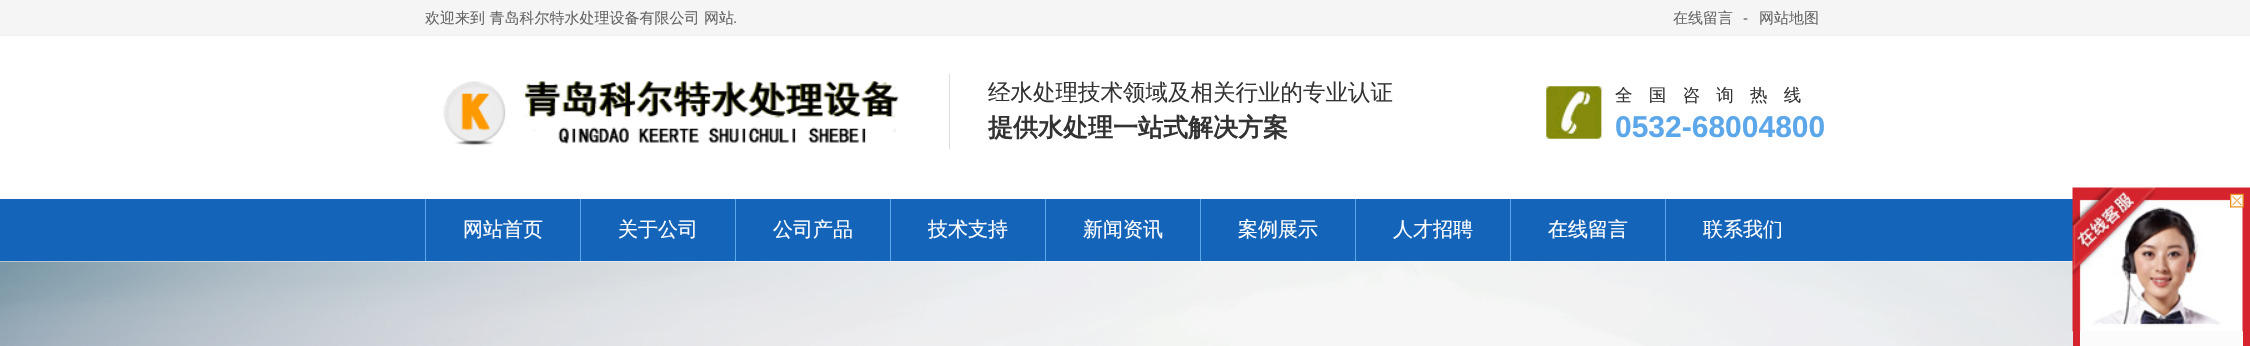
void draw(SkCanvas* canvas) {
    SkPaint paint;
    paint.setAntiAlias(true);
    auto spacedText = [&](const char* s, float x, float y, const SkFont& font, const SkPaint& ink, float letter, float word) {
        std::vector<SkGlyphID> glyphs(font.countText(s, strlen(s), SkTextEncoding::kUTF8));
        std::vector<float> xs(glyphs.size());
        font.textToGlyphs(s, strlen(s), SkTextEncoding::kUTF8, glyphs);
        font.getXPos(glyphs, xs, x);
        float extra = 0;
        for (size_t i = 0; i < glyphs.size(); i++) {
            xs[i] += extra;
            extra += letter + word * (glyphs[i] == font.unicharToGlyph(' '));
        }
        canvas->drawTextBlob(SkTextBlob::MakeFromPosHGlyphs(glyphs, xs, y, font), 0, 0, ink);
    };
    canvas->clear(0xFFFFFFFF);
    paint.setColor(0xFFF5F5F5);
    canvas->drawRect(SkRect::MakeXYWH(0, 0, 2250, 35), paint);
    paint.setColor(0xFFF1F1F1);
    canvas->drawRect(SkRect::MakeXYWH(0, 35, 2250, 1), paint);
    SkFont font1(fontMgr->matchFamilyStyle("WenQuanYi Zen Hei", SkFontStyle(500, SkFontStyle::kNormal_Width, SkFontStyle::kUpright_Slant)), 15);
    font1.setSubpixel(true);
    paint.setColor(0xFF666666);
    canvas->drawString("欢迎来到 青岛科尔特水处理设备有限公司 网站", 425, 23, font1, paint);
    SkFont font2(fontMgr->matchFamilyStyle("Liberation Sans", SkFontStyle::Normal()), 15);
    font2.setSubpixel(true);
    canvas->drawString(".", 733, 23, font2, paint);
    canvas->drawString("在线留言", 1673, 23, font1, paint);
    canvas->drawString("-", 1743, 23, font2, paint);
    canvas->drawString("网站地图", 1759, 23, font1, paint);
    canvas->drawImageRect(SkImages::DeferredFromEncodedData(SkData::MakeFromFileName("img1.png")), SkRect::MakeXYWH(443, 81, 456, 65), SkSamplingOptions());
    paint.setColor(0xFFDEDEDE);
    canvas->drawRect(SkRect::MakeXYWH(949, 74, 1, 75), paint);
    SkFont font3(fontMgr->matchFamilyStyle("WenQuanYi Zen Hei", SkFontStyle(500, SkFontStyle::kNormal_Width, SkFontStyle::kUpright_Slant)), 22.5f);
    font3.setSubpixel(true);
    paint.setColor(0xFF333333);
    canvas->drawString("经水处理技术领域及相关行业的专业认证", 988, 100, font3, paint);
    SkFont font4(fontMgr->matchFamilyStyle("WenQuanYi Zen Hei", SkFontStyle::Bold()), 25);
    font4.setSubpixel(true);
    canvas->drawString("提供水处理一站式解决方案", 988, 136, font4, paint);
    canvas->drawImageRect(SkImages::DeferredFromEncodedData(SkData::MakeFromFileName("img2.png")), SkRect::MakeXYWH(1546, 86, 57, 53), SkSamplingOptions());
    SkFont font5(fontMgr->matchFamilyStyle("WenQuanYi Zen Hei", SkFontStyle(500, SkFontStyle::kNormal_Width, SkFontStyle::kUpright_Slant)), 17.5f);
    font5.setSubpixel(true);
    spacedText("全国咨询热线", 1615, 101, font5, paint, 16.25f, 0);
    SkFont font6(fontMgr->matchFamilyStyle("Liberation Sans", SkFontStyle::Bold()), 30);
    font6.setSubpixel(true);
    paint.setColor(0xFF5CA7EA);
    canvas->drawString("0532-68004800", 1615, 137, font6, paint);
    paint.setColor(0xFF1464B9);
    canvas->drawRect(SkRect::MakeXYWH(0, 199, 2073, 62), paint);
    paint.setColor(0xFF5CA7EA);
    canvas->drawRect(SkRect::MakeXYWH(425, 199, 1, 62), paint);
    SkFont font7(fontMgr->matchFamilyStyle("WenQuanYi Zen Hei", SkFontStyle(500, SkFontStyle::kNormal_Width, SkFontStyle::kUpright_Slant)), 20);
    font7.setSubpixel(true);
    paint.setColor(0xFFFFFFFF);
    canvas->drawString("网站首页", 463, 236, font7, paint);
    paint.setColor(0xFF5CA7EA);
    canvas->drawRect(SkRect::MakeXYWH(580, 199, 1, 62), paint);
    paint.setColor(0xFFFFFFFF);
    canvas->drawString("关于公司", 618, 236, font7, paint);
    paint.setColor(0xFF5CA7EA);
    canvas->drawRect(SkRect::MakeXYWH(735, 199, 1, 62), paint);
    paint.setColor(0xFFFFFFFF);
    canvas->drawString("公司产品", 773, 236, font7, paint);
    paint.setColor(0xFF5CA7EA);
    canvas->drawRect(SkRect::MakeXYWH(890, 199, 1, 62), paint);
    paint.setColor(0xFFFFFFFF);
    canvas->drawString("技术支持", 928, 236, font7, paint);
    paint.setColor(0xFF5CA7EA);
    canvas->drawRect(SkRect::MakeXYWH(1045, 199, 1, 62), paint);
    paint.setColor(0xFFFFFFFF);
    canvas->drawString("新闻资讯", 1083, 236, font7, paint);
    paint.setColor(0xFF5CA7EA);
    canvas->drawRect(SkRect::MakeXYWH(1200, 199, 1, 62), paint);
    paint.setColor(0xFFFFFFFF);
    canvas->drawString("案例展示", 1238, 236, font7, paint);
    paint.setColor(0xFF5CA7EA);
    canvas->drawRect(SkRect::MakeXYWH(1355, 199, 1, 62), paint);
    paint.setColor(0xFFFFFFFF);
    canvas->drawString("人才招聘", 1393, 236, font7, paint);
    paint.setColor(0xFF5CA7EA);
    canvas->drawRect(SkRect::MakeXYWH(1510, 199, 1, 62), paint);
    paint.setColor(0xFFFFFFFF);
    canvas->drawString("在线留言", 1548, 236, font7, paint);
    paint.setColor(0xFF5CA7EA);
    canvas->drawRect(SkRect::MakeXYWH(1665, 199, 1, 62), paint);
    paint.setColor(0xFFFFFFFF);
    canvas->drawString("联系我们", 1703, 236, font7, paint);
    canvas->drawImageRect(SkImages::DeferredFromEncodedData(SkData::MakeFromFileName("img3.png")), SkRect::MakeXYWH(0, 261, 2073, 85), SkSamplingOptions());
    paint.setColor(0xFFFBFBFB);
    canvas->drawRect(SkRect::MakeXYWH(2080, 331, 163, 15), paint);
    paint.setColor(0xFFD5242E);
    canvas->drawRect(SkRect::MakeXYWH(2243, 331, 7, 15), paint);
    canvas->drawRect(SkRect::MakeXYWH(2073, 331, 7, 15), paint);
    canvas->drawImageRect(SkImages::DeferredFromEncodedData(SkData::MakeFromFileName("img4.png")), SkRect::MakeXYWH(2072, 187, 178, 145), SkSamplingOptions());
    canvas->drawImageRect(SkImages::DeferredFromEncodedData(SkData::MakeFromFileName("img5.png")), SkRect::MakeXYWH(2230, 193, 14, 15), SkSamplingOptions());
}
